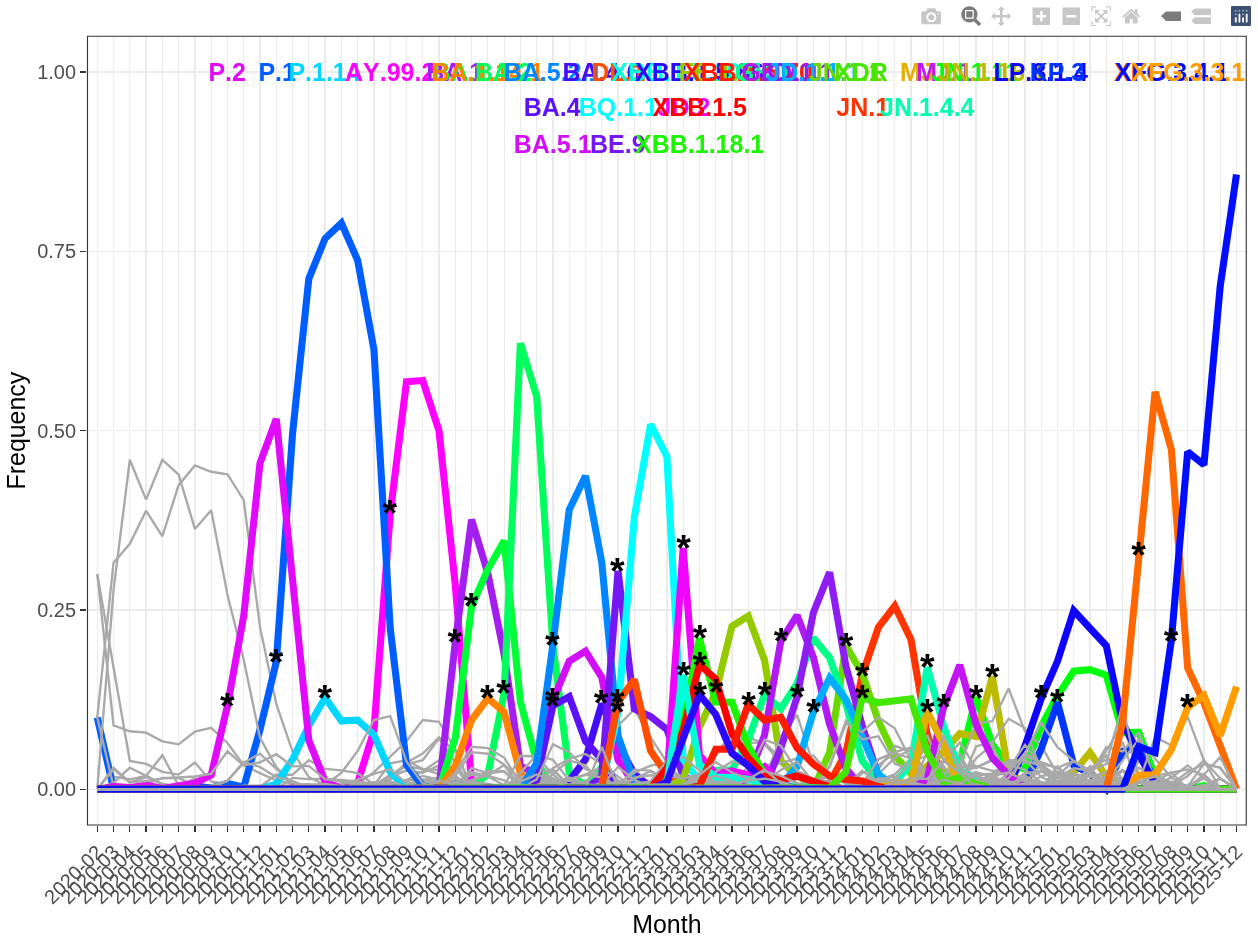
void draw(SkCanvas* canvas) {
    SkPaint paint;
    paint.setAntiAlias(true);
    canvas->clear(0xFFFFFFFF);
    canvas->drawImageRect(SkImages::DeferredFromEncodedData(SkData::MakeFromFileName("img1.png")), SkRect::MakeXYWH(921, 8, 20, 17), SkSamplingOptions());
    canvas->drawImageRect(SkImages::DeferredFromEncodedData(SkData::MakeFromFileName("img2.png")), SkRect::MakeXYWH(961, 6, 20, 20), SkSamplingOptions());
    canvas->drawImageRect(SkImages::DeferredFromEncodedData(SkData::MakeFromFileName("img3.png")), SkRect::MakeXYWH(991, 6, 20, 20), SkSamplingOptions());
    canvas->drawImageRect(SkImages::DeferredFromEncodedData(SkData::MakeFromFileName("img4.png")), SkRect::MakeXYWH(1032, 7, 18, 18), SkSamplingOptions());
    canvas->drawImageRect(SkImages::DeferredFromEncodedData(SkData::MakeFromFileName("img5.png")), SkRect::MakeXYWH(1062, 7, 18, 18), SkSamplingOptions());
    canvas->drawImageRect(SkImages::DeferredFromEncodedData(SkData::MakeFromFileName("img6.png")), SkRect::MakeXYWH(1091, 6, 20, 20), SkSamplingOptions());
    canvas->drawImageRect(SkImages::DeferredFromEncodedData(SkData::MakeFromFileName("img7.png")), SkRect::MakeXYWH(1122, 9, 19, 15), SkSamplingOptions());
    paint.setColor(0xFF7C7C7C);
    canvas->drawPath(SkPathBuilder().moveTo(1166, 11.5f).lineTo(1161, 16).lineTo(1166, 21).lineTo(1181, 21).lineTo(1181, 11.5f).close().detach(), paint);
    canvas->drawImageRect(SkImages::DeferredFromEncodedData(SkData::MakeFromFileName("img8.png")), SkRect::MakeXYWH(1191, 8, 20, 16), SkSamplingOptions());
    canvas->drawImageRect(SkImages::DeferredFromEncodedData(SkData::MakeFromFileName("img9.png")), SkRect::MakeXYWH(1231, 6, 20, 20), SkSamplingOptions());
    canvas->drawImageRect(SkImages::DeferredFromEncodedData(SkData::MakeFromFileName("img11.png")), SkRect::MakeXYWH(38, 36, 1208, 869), SkSamplingOptions());
    canvas->drawImageRect(SkImages::DeferredFromEncodedData(SkData::MakeFromFileName("img10.png")), SkRect::MakeXYWH(7, 35, 1240, 898), SkSamplingOptions());
}
